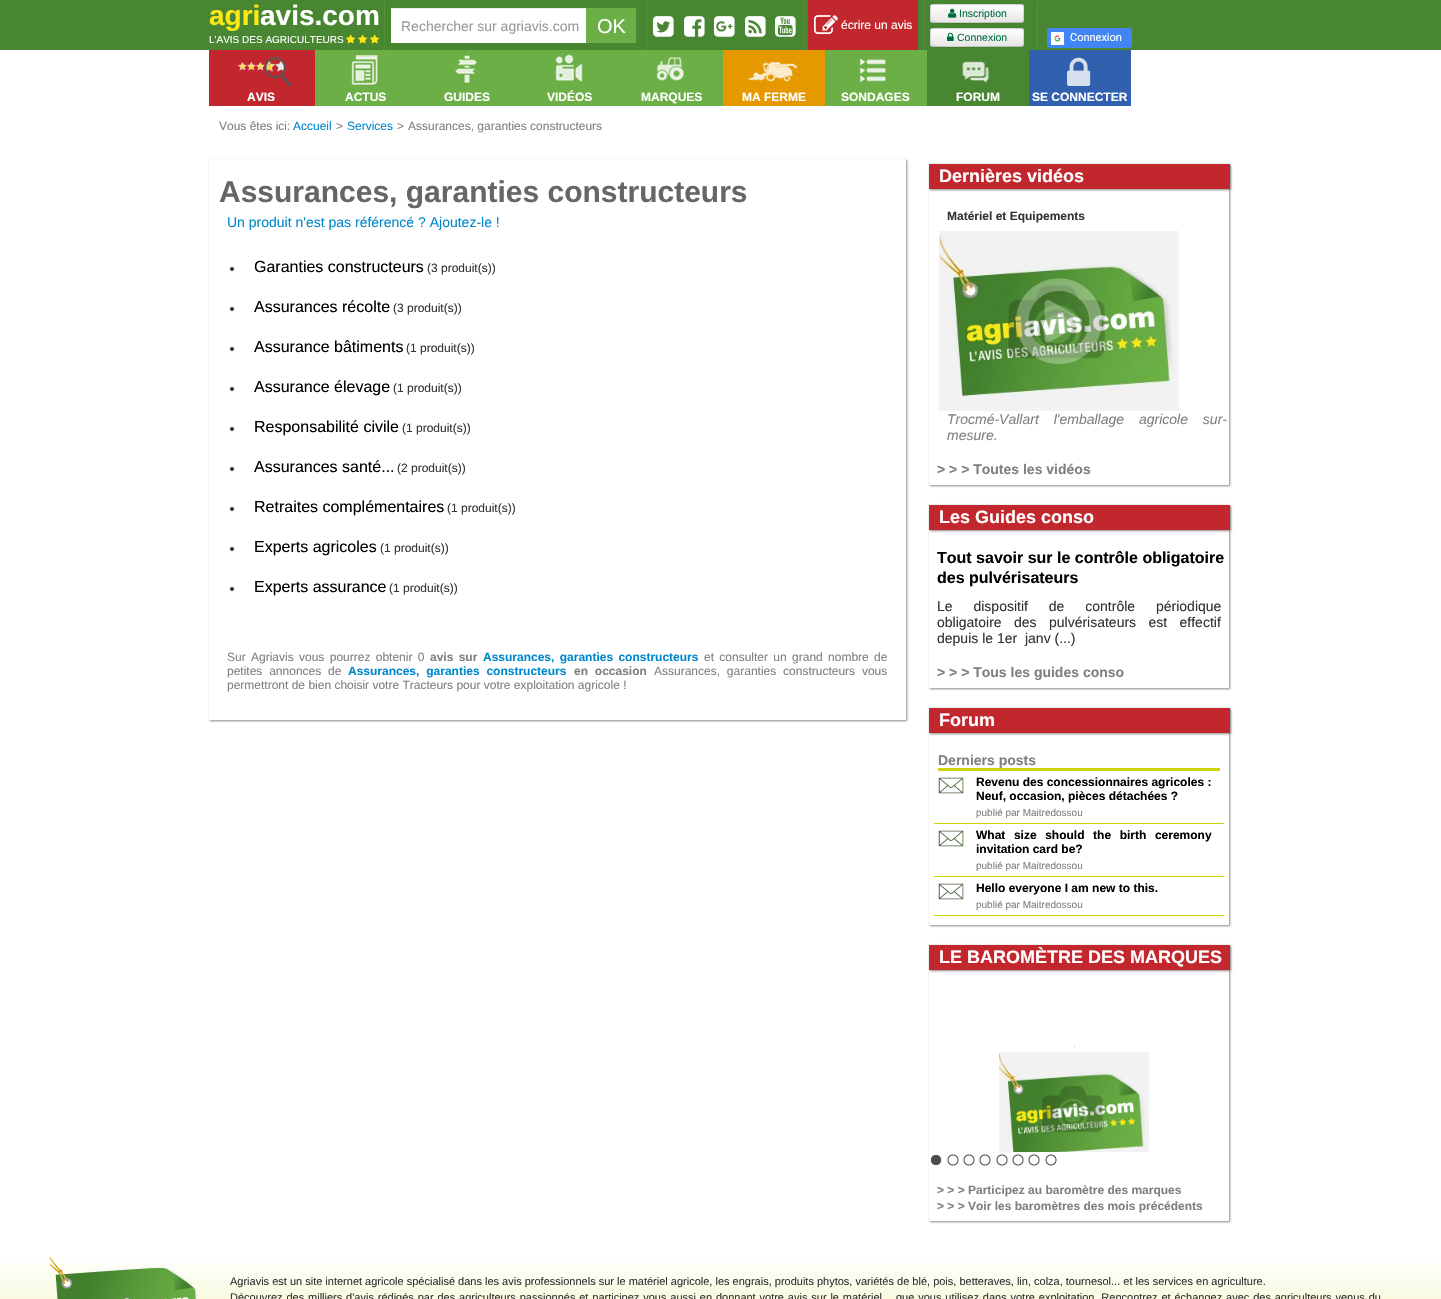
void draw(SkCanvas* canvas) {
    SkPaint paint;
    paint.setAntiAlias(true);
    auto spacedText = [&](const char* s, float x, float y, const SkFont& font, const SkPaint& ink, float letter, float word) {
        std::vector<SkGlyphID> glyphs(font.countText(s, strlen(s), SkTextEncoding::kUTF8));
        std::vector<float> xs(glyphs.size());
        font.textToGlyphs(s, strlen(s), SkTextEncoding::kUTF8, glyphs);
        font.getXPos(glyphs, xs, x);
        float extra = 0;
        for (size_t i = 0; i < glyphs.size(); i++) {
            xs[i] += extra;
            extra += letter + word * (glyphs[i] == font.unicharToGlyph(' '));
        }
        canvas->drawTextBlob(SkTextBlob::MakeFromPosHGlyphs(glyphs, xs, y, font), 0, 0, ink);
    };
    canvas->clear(0xFFFFFFFF);
    paint.setColor(0xFF488631);
    canvas->drawRect(SkRect::MakeXYWH(0, 0, 1441, 50), paint);
    SkFont font1(fontMgr->matchFamilyStyle("Liberation Sans", SkFontStyle::Bold()), 28);
    font1.setSubpixel(true);
    paint.setColor(0xFFFDE918);
    canvas->drawString("agri", 209, 25, font1, paint);
    paint.setColor(0xFFFFFFFF);
    canvas->drawString("avis.com", 260, 25, font1, paint);
    SkFont font2(fontMgr->matchFamilyStyle("Liberation Sans", SkFontStyle::Normal()), 10);
    font2.setSubpixel(true);
    canvas->drawString("L'AVIS DES AGRICULTEURS", 209, 43, font2, paint);
    canvas->drawImageRect(SkImages::DeferredFromEncodedData(SkData::MakeFromFileName("img1.png")), SkRect::MakeXYWH(346, 34, 10, 10), SkSamplingOptions());
    canvas->drawImageRect(SkImages::DeferredFromEncodedData(SkData::MakeFromFileName("img1.png")), SkRect::MakeXYWH(358, 34, 10, 10), SkSamplingOptions());
    canvas->drawImageRect(SkImages::DeferredFromEncodedData(SkData::MakeFromFileName("img1.png")), SkRect::MakeXYWH(370, 34, 10, 10), SkSamplingOptions());
    paint.setColor(0xFF529337);
    canvas->drawRect(SkRect::MakeXYWH(384, 0, 1, 50), paint);
    paint.setColor(0xFFFFFFFF);
    canvas->drawRect(SkRect::MakeXYWH(391, 9, 195, 34), paint);
    paint.setColor(0xFFECECEC);
    canvas->drawRect(SkRect::MakeXYWH(391, 8, 195, 1), paint);
    SkFont font3(fontMgr->matchFamilyStyle("Liberation Sans", SkFontStyle::Normal()), 14);
    font3.setSubpixel(true);
    paint.setColor(0xFF999999);
    canvas->drawString("Rechercher sur agriavis.com", 401, 31, font3, paint);
    paint.setColor(0xFF6CAF46);
    canvas->drawRect(SkRect::MakeXYWH(586, 8, 50, 35), paint);
    SkFont font4(fontMgr->matchFamilyStyle("Liberation Sans", SkFontStyle::Normal()), 20);
    font4.setSubpixel(true);
    paint.setColor(0xFFFFFFFF);
    canvas->drawString("OK", 597, 33, font4, paint);
    paint.setColor(0xFF529337);
    canvas->drawRect(SkRect::MakeXYWH(646, 0, 1, 50), paint);
    canvas->drawImageRect(SkImages::DeferredFromEncodedData(SkData::MakeFromFileName("img2.png")), SkRect::MakeXYWH(653, 16, 21, 21), SkSamplingOptions());
    canvas->drawImageRect(SkImages::DeferredFromEncodedData(SkData::MakeFromFileName("img3.png")), SkRect::MakeXYWH(684, 16, 21, 21), SkSamplingOptions());
    canvas->drawImageRect(SkImages::DeferredFromEncodedData(SkData::MakeFromFileName("img4.png")), SkRect::MakeXYWH(714, 16, 21, 21), SkSamplingOptions());
    canvas->drawImageRect(SkImages::DeferredFromEncodedData(SkData::MakeFromFileName("img5.png")), SkRect::MakeXYWH(745, 16, 21, 21), SkSamplingOptions());
    canvas->drawImageRect(SkImages::DeferredFromEncodedData(SkData::MakeFromFileName("img6.png")), SkRect::MakeXYWH(775, 16, 21, 21), SkSamplingOptions());
    canvas->drawRect(SkRect::MakeXYWH(803, 0, 1, 50), paint);
    paint.setColor(0xFFC2272D);
    canvas->drawRect(SkRect::MakeXYWH(808, 0, 110, 50), paint);
    canvas->drawImageRect(SkImages::DeferredFromEncodedData(SkData::MakeFromFileName("img7.png")), SkRect::MakeXYWH(814, 15, 24, 19), SkSamplingOptions());
    SkFont font5(fontMgr->matchFamilyStyle("Liberation Sans", SkFontStyle::Normal()), 12);
    font5.setSubpixel(true);
    paint.setColor(0xFFFFFFFF);
    canvas->drawString("écrire un avis", 841, 29, font5, paint);
    paint.setColor(0xFF529337);
    canvas->drawRect(SkRect::MakeXYWH(923, 0, 1, 50), paint);
    paint.setColor(0xFFF5F5F5);
    canvas->drawRoundRect(SkRect::MakeXYWH(930, 4, 94, 19), 3, 3, paint);
    canvas->save();
    canvas->clipPath(SkPathBuilder().moveTo(933, 4).lineTo(1021, 4).cubicTo(1022.5f, 4, 1024, 5.5f, 1024, 7).lineTo(1024, 20).cubicTo(1024, 21.5f, 1022.5f, 23, 1021, 23).lineTo(933, 23).cubicTo(931.5f, 23, 930, 21.5f, 930, 20).lineTo(930, 7).cubicTo(930, 5.5f, 931.5f, 4, 933, 4).close().detach(), true);
    {
        const SkColor colors[] = {0xFFFFFFFF, 0xFFE6E6E6};
        const float stops[] = {0, 1};
        const SkPoint ends[] = {{977, 5}, {977, 22}};
        paint.setShader(SkGradientShader::MakeLinear(ends, colors, stops, 2, SkTileMode::kClamp));
        paint.setAlpha(255);
    }
    canvas->drawRect(SkRect::MakeXYWH(930, 5, 94, 17), paint);
    canvas->restore();
    paint.setShader(nullptr);
    paint.setColor(0x33FFFFFF);
    canvas->drawPath(SkPathBuilder().moveTo(933, 6).lineTo(1021, 6).cubicTo(1022, 6, 1023, 7, 1023, 8).cubicTo(1023, 7, 1023, 5, 1021, 5).lineTo(948, 5).cubicTo(945, 5, 931, 1, 931, 8).cubicTo(931, 7, 932, 6, 933, 6).close().detach(), paint);
    paint.setStyle(SkPaint::kStroke_Style);
    paint.setStrokeWidth(1);
    paint.setColor(0x40000000);
    canvas->drawPath(SkPathBuilder().moveTo(1023, 22).lineTo(1021, 22.5f).lineTo(1006.5f, 22.5f).cubicTo(998.5f, 22.5f, 933.5f, 23.5f, 931.5f, 22).lineTo(931, 22).detach(), paint);
    paint.setColor(0x26000000);
    canvas->drawPath(SkPathBuilder().moveTo(931, 22).cubicTo(929.5f, 20, 930.5f, 15.5f, 930.5f, 13.5f).cubicTo(930.5f, 11.5f, 929, 4.5f, 933, 4.5f).lineTo(1021, 4.5f).cubicTo(1025, 4.5f, 1023.5f, 11.5f, 1023.5f, 13.5f).cubicTo(1023.5f, 15.5f, 1024.5f, 20, 1023, 22).detach(), paint);
    canvas->drawImageRect(SkImages::DeferredFromEncodedData(SkData::MakeFromFileName("img8.png")), SkRect::MakeXYWH(948, 8, 9, 10), SkSamplingOptions());
    SkFont font6(fontMgr->matchFamilyStyle("Liberation Sans", SkFontStyle::Normal()), 10.5f);
    font6.setSubpixel(true);
    paint.setStyle(SkPaint::kFill_Style);
    paint.setColor(0xFF006D3E);
    canvas->drawString("Inscription", 959, 17, font6, paint);
    paint.setColor(0xFFF5F5F5);
    canvas->drawRoundRect(SkRect::MakeXYWH(930, 28, 94, 19), 3, 3, paint);
    canvas->save();
    canvas->clipPath(SkPathBuilder().moveTo(933, 28).lineTo(1021, 28).cubicTo(1022.5f, 28, 1024, 29.5f, 1024, 31).lineTo(1024, 44).cubicTo(1024, 45.5f, 1022.5f, 47, 1021, 47).lineTo(933, 47).cubicTo(931.5f, 47, 930, 45.5f, 930, 44).lineTo(930, 31).cubicTo(930, 29.5f, 931.5f, 28, 933, 28).close().detach(), true);
    {
        const SkColor colors[] = {0xFFFFFFFF, 0xFFE6E6E6};
        const float stops[] = {0, 1};
        const SkPoint ends[] = {{977, 29}, {977, 46}};
        paint.setShader(SkGradientShader::MakeLinear(ends, colors, stops, 2, SkTileMode::kClamp));
        paint.setAlpha(255);
    }
    canvas->drawRect(SkRect::MakeXYWH(930, 29, 94, 17), paint);
    canvas->restore();
    paint.setShader(nullptr);
    paint.setColor(0x33FFFFFF);
    canvas->drawPath(SkPathBuilder().moveTo(933, 30).lineTo(1021, 30).cubicTo(1022, 30, 1023, 31, 1023, 32).cubicTo(1023, 31, 1023, 29, 1021, 29).lineTo(948, 29).cubicTo(945, 29, 931, 25, 931, 32).cubicTo(931, 31, 932, 30, 933, 30).close().detach(), paint);
    paint.setStyle(SkPaint::kStroke_Style);
    paint.setColor(0x40000000);
    canvas->drawPath(SkPathBuilder().moveTo(1023, 46).lineTo(1021, 46.5f).lineTo(1006.5f, 46.5f).cubicTo(998.5f, 46.5f, 933.5f, 47.5f, 931.5f, 46).lineTo(931, 46).detach(), paint);
    paint.setColor(0x26000000);
    canvas->drawPath(SkPathBuilder().moveTo(931, 46).cubicTo(929.5f, 44, 930.5f, 39.5f, 930.5f, 37.5f).cubicTo(930.5f, 35.5f, 929, 28.5f, 933, 28.5f).lineTo(1021, 28.5f).cubicTo(1025, 28.5f, 1023.5f, 35.5f, 1023.5f, 37.5f).cubicTo(1023.5f, 39.5f, 1024.5f, 44, 1023, 46).detach(), paint);
    canvas->drawImageRect(SkImages::DeferredFromEncodedData(SkData::MakeFromFileName("img9.png")), SkRect::MakeXYWH(947, 32, 7, 9), SkSamplingOptions());
    paint.setStyle(SkPaint::kFill_Style);
    paint.setColor(0xFF006D3E);
    canvas->drawString("Connexion", 957, 41, font6, paint);
    paint.setColor(0xFF529337);
    canvas->drawRect(SkRect::MakeXYWH(1037, 1, 1, 50), paint);
    paint.setColor(0xFF4285F4);
    canvas->drawRoundRect(SkRect::MakeXYWH(1047.5f, 28.5f, 84, 19), 2.5f, 2.5f, paint);
    paint.setStyle(SkPaint::kStroke_Style);
    canvas->drawRoundRect(SkRect::MakeXYWH(1047.5f, 28.5f, 84, 19), 2.5f, 2.5f, paint);
    canvas->drawImageRect(SkImages::DeferredFromEncodedData(SkData::MakeFromFileName("img10.png")), SkRect::MakeXYWH(1050, 32, 15, 13), SkSamplingOptions());
    SkFont font7(fontMgr->matchFamilyStyle("Roboto", SkFontStyle::Normal()), 11);
    font7.setSubpixel(true);
    paint.setStyle(SkPaint::kFill_Style);
    paint.setColor(0xFFFFFFFF);
    canvas->drawString("Connexion", 1070, 41, font7, paint);
    paint.setColor(0xFFC2272D);
    canvas->drawRect(SkRect::MakeXYWH(209, 50, 106, 56), paint);
    canvas->drawImageRect(SkImages::DeferredFromEncodedData(SkData::MakeFromFileName("img11.png")), SkRect::MakeXYWH(238, 57, 54, 30), SkSamplingOptions());
    SkFont font8(fontMgr->matchFamilyStyle("Liberation Sans", SkFontStyle::Bold()), 12);
    font8.setSubpixel(true);
    paint.setColor(0xFFFFFFFF);
    canvas->drawString("AVIS", 247, 101, font8, paint);
    paint.setColor(0xFF6CAF46);
    canvas->drawRect(SkRect::MakeXYWH(315, 50, 408, 56), paint);
    canvas->drawImageRect(SkImages::DeferredFromEncodedData(SkData::MakeFromFileName("img12.png")), SkRect::MakeXYWH(351, 55, 27, 30), SkSamplingOptions());
    paint.setColor(0xFFFFFFFF);
    canvas->drawString("ACTUS", 345, 101, font8, paint);
    canvas->drawImageRect(SkImages::DeferredFromEncodedData(SkData::MakeFromFileName("img13.png")), SkRect::MakeXYWH(455, 55, 22, 28), SkSamplingOptions());
    canvas->drawString("GUIDES", 444, 101, font8, paint);
    canvas->drawImageRect(SkImages::DeferredFromEncodedData(SkData::MakeFromFileName("img14.png")), SkRect::MakeXYWH(555, 54, 28, 28), SkSamplingOptions());
    canvas->drawString("VIDÉOS", 547, 101, font8, paint);
    canvas->drawImageRect(SkImages::DeferredFromEncodedData(SkData::MakeFromFileName("img15.png")), SkRect::MakeXYWH(656, 57, 28, 24), SkSamplingOptions());
    canvas->drawString("MARQUES", 641, 101, font8, paint);
    paint.setColor(0xFFE69800);
    canvas->drawRect(SkRect::MakeXYWH(723, 50, 102, 56), paint);
    canvas->drawImageRect(SkImages::DeferredFromEncodedData(SkData::MakeFromFileName("img16.png")), SkRect::MakeXYWH(748, 61, 49, 21), SkSamplingOptions());
    paint.setColor(0xFFFFFFFF);
    canvas->drawString("MA FERME", 742, 101, font8, paint);
    paint.setColor(0xFF6CAF46);
    canvas->drawRect(SkRect::MakeXYWH(825, 50, 102, 56), paint);
    canvas->drawImageRect(SkImages::DeferredFromEncodedData(SkData::MakeFromFileName("img17.png")), SkRect::MakeXYWH(859, 58, 27, 24), SkSamplingOptions());
    paint.setColor(0xFFFFFFFF);
    canvas->drawString("SONDAGES", 841, 101, font8, paint);
    paint.setColor(0xFF488631);
    canvas->drawRect(SkRect::MakeXYWH(927, 50, 102, 56), paint);
    canvas->drawImageRect(SkImages::DeferredFromEncodedData(SkData::MakeFromFileName("img18.png")), SkRect::MakeXYWH(962, 61, 27, 22), SkSamplingOptions());
    paint.setColor(0xFFFFFFFF);
    canvas->drawString("FORUM", 956, 101, font8, paint);
    paint.setColor(0xFF3160AE);
    canvas->drawRect(SkRect::MakeXYWH(1029, 50, 102, 56), paint);
    canvas->drawImageRect(SkImages::DeferredFromEncodedData(SkData::MakeFromFileName("img19.png")), SkRect::MakeXYWH(1067, 57, 24, 29), SkSamplingOptions());
    paint.setColor(0xFFFFFFFF);
    canvas->drawString("SE CONNECTER", 1032, 101, font8, paint);
    paint.setColor(0xFF808080);
    canvas->drawString("Vous êtes ici:", 219, 130, font5, paint);
    paint.setColor(0xFF0088CC);
    canvas->drawString("Accueil", 293, 130, font5, paint);
    paint.setColor(0xFF808080);
    canvas->drawString(">", 336, 130, font5, paint);
    paint.setColor(0xFF0088CC);
    canvas->drawString("Services", 347, 130, font5, paint);
    paint.setColor(0xFF808080);
    canvas->drawString(">", 397, 130, font5, paint);
    canvas->drawString("Assurances, garanties constructeurs", 408, 130, font5, paint);
    canvas->save();
    canvas->clipPath(SkPathBuilder(SkPathFillType::kEvenOdd).moveTo(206, 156).lineTo(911, 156).lineTo(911, 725).lineTo(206, 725).close().moveTo(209, 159).lineTo(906, 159).lineTo(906, 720).lineTo(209, 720).close().detach(), true);
    paint.setColor(0xFF888888);
    paint.setMaskFilter(SkMaskFilter::MakeBlur(kNormal_SkBlurStyle, 1));
    canvas->drawRect(SkRect::MakeXYWH(210, 160, 697, 561), paint);
    paint.setMaskFilter(nullptr);
    canvas->restore();
    SkFont font9(fontMgr->matchFamilyStyle("Liberation Sans", SkFontStyle::Bold()), 30);
    font9.setSubpixel(true);
    paint.setColor(0xFF666666);
    canvas->drawString("Assurances, garanties constructeurs", 219, 202, font9, paint);
    paint.setColor(0xFF0088CC);
    canvas->drawString("Un produit n'est pas référencé ? Ajoutez-le !", 227, 227, font3, paint);
    paint.setColor(0xFF333333);
    canvas->drawCircle(232, 269, 2, paint);
    SkFont font10(fontMgr->matchFamilyStyle("Liberation Sans", SkFontStyle::Normal()), 16);
    font10.setSubpixel(true);
    paint.setColor(0xFF000000);
    canvas->drawString("Garanties constructeurs", 254, 272, font10, paint);
    paint.setColor(0xFF333333);
    canvas->drawString("(3 produit(s))", 427, 272, font5, paint);
    canvas->drawCircle(232, 309, 2, paint);
    paint.setColor(0xFF000000);
    canvas->drawString("Assurances récolte", 254, 312, font10, paint);
    paint.setColor(0xFF333333);
    canvas->drawString("(3 produit(s))", 393, 312, font5, paint);
    canvas->drawCircle(232, 349, 2, paint);
    paint.setColor(0xFF000000);
    canvas->drawString("Assurance bâtiments", 254, 352, font10, paint);
    paint.setColor(0xFF333333);
    canvas->drawString("(1 produit(s))", 406, 352, font5, paint);
    canvas->drawCircle(232, 389, 2, paint);
    paint.setColor(0xFF000000);
    canvas->drawString("Assurance élevage", 254, 392, font10, paint);
    paint.setColor(0xFF333333);
    canvas->drawString("(1 produit(s))", 393, 392, font5, paint);
    canvas->drawCircle(232, 429, 2, paint);
    paint.setColor(0xFF000000);
    canvas->drawString("Responsabilité civile", 254, 432, font10, paint);
    paint.setColor(0xFF333333);
    canvas->drawString("(1 produit(s))", 402, 432, font5, paint);
    canvas->drawCircle(232, 469, 2, paint);
    paint.setColor(0xFF000000);
    canvas->drawString("Assurances santé...", 254, 472, font10, paint);
    paint.setColor(0xFF333333);
    canvas->drawString("(2 produit(s))", 397, 472, font5, paint);
    canvas->drawCircle(232, 509, 2, paint);
    paint.setColor(0xFF000000);
    canvas->drawString("Retraites complémentaires", 254, 512, font10, paint);
    paint.setColor(0xFF333333);
    canvas->drawString("(1 produit(s))", 447, 512, font5, paint);
    canvas->drawCircle(232, 549, 2, paint);
    paint.setColor(0xFF000000);
    canvas->drawString("Experts agricoles", 254, 552, font10, paint);
    paint.setColor(0xFF333333);
    canvas->drawString("(1 produit(s))", 380, 552, font5, paint);
    canvas->drawCircle(232, 589, 2, paint);
    paint.setColor(0xFF000000);
    canvas->drawString("Experts assurance", 254, 592, font10, paint);
    paint.setColor(0xFF333333);
    canvas->drawString("(1 produit(s))", 389, 592, font5, paint);
    paint.setColor(0xFF808080);
    spacedText("Sur Agriavis vous pourrez obtenir 0", 227, 661, font5, paint, 0, 2);
    spacedText("avis sur", 430, 661, font8, paint, 0, 2);
    paint.setColor(0xFF0088CC);
    spacedText("Assurances, garanties constructeurs", 483, 661, font8, paint, 0, 2);
    paint.setColor(0xFF808080);
    spacedText("et consulter un grand nombre de", 704, 661, font5, paint, 0, 2);
    spacedText("petites annonces de", 227, 675, font5, paint, 0, 3.5f);
    paint.setColor(0xFF0088CC);
    spacedText("Assurances, garanties constructeurs", 348, 675, font8, paint, 0, 3.5f);
    paint.setColor(0xFF808080);
    spacedText("en occasion", 574, 675, font8, paint, 0, 3.5f);
    spacedText("Assurances, garanties constructeurs vous", 654, 675, font5, paint, 0, 3.5f);
    canvas->drawString("permettront de bien choisir votre Tracteurs pour votre exploitation agricole !", 227, 689, font5, paint);
    canvas->save();
    canvas->clipPath(SkPathBuilder(SkPathFillType::kEvenOdd).moveTo(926, 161).lineTo(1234, 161).lineTo(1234, 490).lineTo(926, 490).close().moveTo(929, 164).lineTo(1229, 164).lineTo(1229, 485).lineTo(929, 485).close().detach(), true);
    paint.setColor(0xFF888888);
    paint.setMaskFilter(SkMaskFilter::MakeBlur(kNormal_SkBlurStyle, 1));
    canvas->drawRect(SkRect::MakeXYWH(930, 165, 300, 321), paint);
    paint.setMaskFilter(nullptr);
    canvas->restore();
    paint.setMaskFilter(SkMaskFilter::MakeBlur(kNormal_SkBlurStyle, 1));
    canvas->drawRect(SkRect::MakeXYWH(930, 165, 301, 25), paint);
    paint.setMaskFilter(nullptr);
    paint.setColor(0xFFC2272D);
    canvas->drawRect(SkRect::MakeXYWH(929, 164, 301, 25), paint);
    SkFont font11(fontMgr->matchFamilyStyle("Liberation Sans", SkFontStyle::Bold()), 18);
    font11.setSubpixel(true);
    paint.setColor(0xFFFFFFFF);
    canvas->drawString("Dernières vidéos", 939, 182, font11, paint);
    paint.setColor(0xFF333333);
    canvas->drawString("Matériel et Equipements", 947, 220, font8, paint);
    canvas->drawImageRect(SkImages::DeferredFromEncodedData(SkData::MakeFromFileName("img20.png")), SkRect::MakeXYWH(939, 231, 240, 180), SkSamplingOptions());
    canvas->drawImageRect(SkImages::DeferredFromEncodedData(SkData::MakeFromFileName("img21.png")), SkRect::MakeXYWH(1016, 278, 86, 87), SkSamplingOptions());
    SkFont font12(fontMgr->matchFamilyStyle("Liberation Sans", SkFontStyle::Italic()), 14);
    font12.setSubpixel(true);
    paint.setColor(0xFF808080);
    spacedText("Trocmé-Vallart l'emballage agricole sur-", 947, 424, font12, paint, 0, 11);
    canvas->drawString("mesure.", 947, 440, font12, paint);
    SkFont font13(fontMgr->matchFamilyStyle("Liberation Sans", SkFontStyle::Bold()), 14);
    font13.setSubpixel(true);
    canvas->drawString("> > > Toutes les vidéos", 937, 474, font13, paint);
    canvas->save();
    canvas->clipPath(SkPathBuilder(SkPathFillType::kEvenOdd).moveTo(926, 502).lineTo(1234, 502).lineTo(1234, 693).lineTo(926, 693).close().moveTo(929, 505).lineTo(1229, 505).lineTo(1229, 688).lineTo(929, 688).close().detach(), true);
    paint.setColor(0xFF888888);
    paint.setMaskFilter(SkMaskFilter::MakeBlur(kNormal_SkBlurStyle, 1));
    canvas->drawRect(SkRect::MakeXYWH(930, 506, 300, 183), paint);
    paint.setMaskFilter(nullptr);
    canvas->restore();
    paint.setMaskFilter(SkMaskFilter::MakeBlur(kNormal_SkBlurStyle, 1));
    canvas->drawRect(SkRect::MakeXYWH(930, 506, 301, 25), paint);
    paint.setMaskFilter(nullptr);
    paint.setColor(0xFFC2272D);
    canvas->drawRect(SkRect::MakeXYWH(929, 505, 301, 25), paint);
    paint.setColor(0xFFFFFFFF);
    canvas->drawString("Les Guides conso", 939, 523, font11, paint);
    SkFont font14(fontMgr->matchFamilyStyle("Liberation Sans", SkFontStyle::Bold()), 16);
    font14.setSubpixel(true);
    paint.setColor(0xFF000000);
    canvas->drawString("Tout savoir sur le contrôle obligatoire", 937, 563, font14, paint);
    canvas->drawString("des pulvérisateurs", 937, 583, font14, paint);
    paint.setColor(0xFF333333);
    spacedText("Le dispositif de contrôle périodique", 937, 611, font3, paint, 0, 17);
    spacedText("obligatoire des pulvérisateurs est effectif", 937, 627, font3, paint, 0, 8.5f);
    canvas->drawString("depuis le 1er  janv (...)", 937, 643, font3, paint);
    paint.setColor(0xFF808080);
    canvas->drawString("> > > Tous les guides conso", 937, 677, font13, paint);
    canvas->save();
    canvas->clipPath(SkPathBuilder(SkPathFillType::kEvenOdd).moveTo(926, 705).lineTo(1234, 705).lineTo(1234, 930).lineTo(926, 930).close().moveTo(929, 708).lineTo(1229, 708).lineTo(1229, 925).lineTo(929, 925).close().detach(), true);
    paint.setColor(0xFF888888);
    paint.setMaskFilter(SkMaskFilter::MakeBlur(kNormal_SkBlurStyle, 1));
    canvas->drawRect(SkRect::MakeXYWH(930, 709, 300, 217), paint);
    paint.setMaskFilter(nullptr);
    canvas->restore();
    paint.setMaskFilter(SkMaskFilter::MakeBlur(kNormal_SkBlurStyle, 1));
    canvas->drawRect(SkRect::MakeXYWH(930, 709, 301, 25), paint);
    paint.setMaskFilter(nullptr);
    paint.setColor(0xFFC2272D);
    canvas->drawRect(SkRect::MakeXYWH(929, 708, 301, 25), paint);
    paint.setColor(0xFFFFFFFF);
    canvas->drawString("Forum", 939, 726, font11, paint);
    paint.setColor(0xFFCDD500);
    canvas->drawRect(SkRect::MakeXYWH(938, 768, 282, 3), paint);
    paint.setColor(0xFF808080);
    canvas->drawString("Derniers posts", 938, 765, font13, paint);
    paint.setColor(0xFFCDD500);
    canvas->drawRect(SkRect::MakeXYWH(934, 823, 290, 1), paint);
    canvas->drawImageRect(SkImages::DeferredFromEncodedData(SkData::MakeFromFileName("img22.png")), SkRect::MakeXYWH(938, 777, 26, 17), SkSamplingOptions());
    paint.setColor(0xFF000000);
    canvas->drawString("Revenu des concessionnaires agricoles :", 976, 786, font8, paint);
    canvas->drawString("Neuf, occasion, pièces détachées ?", 976, 800, font8, paint);
    paint.setColor(0xFF808080);
    canvas->drawString("publié par Maitredossou", 976, 816, font2, paint);
    paint.setColor(0xFFCDD500);
    canvas->drawRect(SkRect::MakeXYWH(934, 876, 290, 1), paint);
    canvas->drawImageRect(SkImages::DeferredFromEncodedData(SkData::MakeFromFileName("img22.png")), SkRect::MakeXYWH(938, 830, 26, 17), SkSamplingOptions());
    paint.setColor(0xFF000000);
    spacedText("What size should the birth ceremony", 976, 839, font8, paint, 0, 5.25f);
    canvas->drawString("invitation card be?", 976, 853, font8, paint);
    paint.setColor(0xFF808080);
    canvas->drawString("publié par Maitredossou", 976, 869, font2, paint);
    paint.setColor(0xFFCDD500);
    canvas->drawRect(SkRect::MakeXYWH(934, 915, 290, 1), paint);
    canvas->drawImageRect(SkImages::DeferredFromEncodedData(SkData::MakeFromFileName("img22.png")), SkRect::MakeXYWH(938, 883, 26, 17), SkSamplingOptions());
    paint.setColor(0xFF000000);
    canvas->drawString("Hello everyone I am new to this.", 976, 892, font8, paint);
    paint.setColor(0xFF808080);
    canvas->drawString("publié par Maitredossou", 976, 908, font2, paint);
    canvas->save();
    canvas->clipPath(SkPathBuilder(SkPathFillType::kEvenOdd).moveTo(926, 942).lineTo(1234, 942).lineTo(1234, 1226).lineTo(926, 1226).close().moveTo(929, 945).lineTo(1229, 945).lineTo(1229, 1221).lineTo(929, 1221).close().detach(), true);
    paint.setColor(0xFF888888);
    paint.setMaskFilter(SkMaskFilter::MakeBlur(kNormal_SkBlurStyle, 1));
    canvas->drawRect(SkRect::MakeXYWH(930, 946, 300, 276), paint);
    paint.setMaskFilter(nullptr);
    canvas->restore();
    paint.setMaskFilter(SkMaskFilter::MakeBlur(kNormal_SkBlurStyle, 1));
    canvas->drawRect(SkRect::MakeXYWH(930, 946, 301, 25), paint);
    paint.setMaskFilter(nullptr);
    paint.setColor(0xFFC2272D);
    canvas->drawRect(SkRect::MakeXYWH(929, 945, 301, 25), paint);
    paint.setColor(0xFFFFFFFF);
    canvas->drawString("LE BAROMÈTRE DES MARQUES", 939, 963, font11, paint);
    paint.setColor(0xFFC2C2C2);
    canvas->drawRect(SkRect::MakeXYWH(1074, 1046, 1, 1), paint);
    canvas->drawImageRect(SkImages::DeferredFromEncodedData(SkData::MakeFromFileName("img23.png")), SkRect::MakeXYWH(999, 1052, 150, 100), SkSamplingOptions());
    canvas->drawImageRect(SkImages::DeferredFromEncodedData(SkData::MakeFromFileName("img24.png")), SkRect::MakeXYWH(931, 1155, 10, 10), SkSamplingOptions());
    canvas->drawImageRect(SkImages::DeferredFromEncodedData(SkData::MakeFromFileName("img25.png")), SkRect::MakeXYWH(947, 1154, 12, 12), SkSamplingOptions());
    canvas->drawImageRect(SkImages::DeferredFromEncodedData(SkData::MakeFromFileName("img25.png")), SkRect::MakeXYWH(963, 1154, 12, 12), SkSamplingOptions());
    canvas->drawImageRect(SkImages::DeferredFromEncodedData(SkData::MakeFromFileName("img25.png")), SkRect::MakeXYWH(979, 1154, 12, 12), SkSamplingOptions());
    canvas->drawImageRect(SkImages::DeferredFromEncodedData(SkData::MakeFromFileName("img25.png")), SkRect::MakeXYWH(996, 1154, 12, 12), SkSamplingOptions());
    canvas->drawImageRect(SkImages::DeferredFromEncodedData(SkData::MakeFromFileName("img25.png")), SkRect::MakeXYWH(1012, 1154, 12, 12), SkSamplingOptions());
    canvas->drawImageRect(SkImages::DeferredFromEncodedData(SkData::MakeFromFileName("img25.png")), SkRect::MakeXYWH(1028, 1154, 12, 12), SkSamplingOptions());
    canvas->drawImageRect(SkImages::DeferredFromEncodedData(SkData::MakeFromFileName("img25.png")), SkRect::MakeXYWH(1045, 1154, 12, 12), SkSamplingOptions());
    paint.setColor(0xFF808080);
    canvas->drawString("> > > Participez au baromètre des marques", 937, 1194, font8, paint);
    canvas->drawString("> > > Voir les baromètres des mois précédents", 937, 1210, font8, paint);
    {
        const SkColor colors[] = {0xFFFFFFFF, 0xFFCDD500};
        const float stops[] = {0, 1};
        const SkPoint ends[] = {{721, 1256}, {721, 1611}};
        paint.setShader(SkGradientShader::MakeLinear(ends, colors, stops, 2, SkTileMode::kClamp));
        paint.setAlpha(255);
    }
    canvas->drawRect(SkRect::MakeXYWH(0, 1259, 1441, 40), paint);
    canvas->drawImageRect(SkImages::DeferredFromEncodedData(SkData::MakeFromFileName("img26.png")), SkRect::MakeXYWH(50, 1256, 148, 43), SkSamplingOptions());
    SkFont font15(fontMgr->matchFamilyStyle("Liberation Sans", SkFontStyle::Normal()), 11);
    font15.setSubpixel(true);
    paint.setShader(nullptr);
    paint.setColor(0xFF333333);
    canvas->drawString("Agriavis est un site internet agricole spécialisé dans les avis professionnels sur le matériel agricole, les engrais, produits phytos, variétés de blé, pois, betteraves, lin, colza, tournesol... et les services en agriculture.", 230, 1285, font15, paint);
    spacedText("Découvrez des milliers d'avis rédigés par des agriculteurs passionnés et participez vous aussi en donnant votre avis sur le matériel", 230, 1301, font15, paint, 0, 0.8f);
    spacedText("que vous utilisez dans votre exploitation. Rencontrez et échangez avec des agriculteurs venus du", 896, 1301, font15, paint, 0, 0.8f);
}
